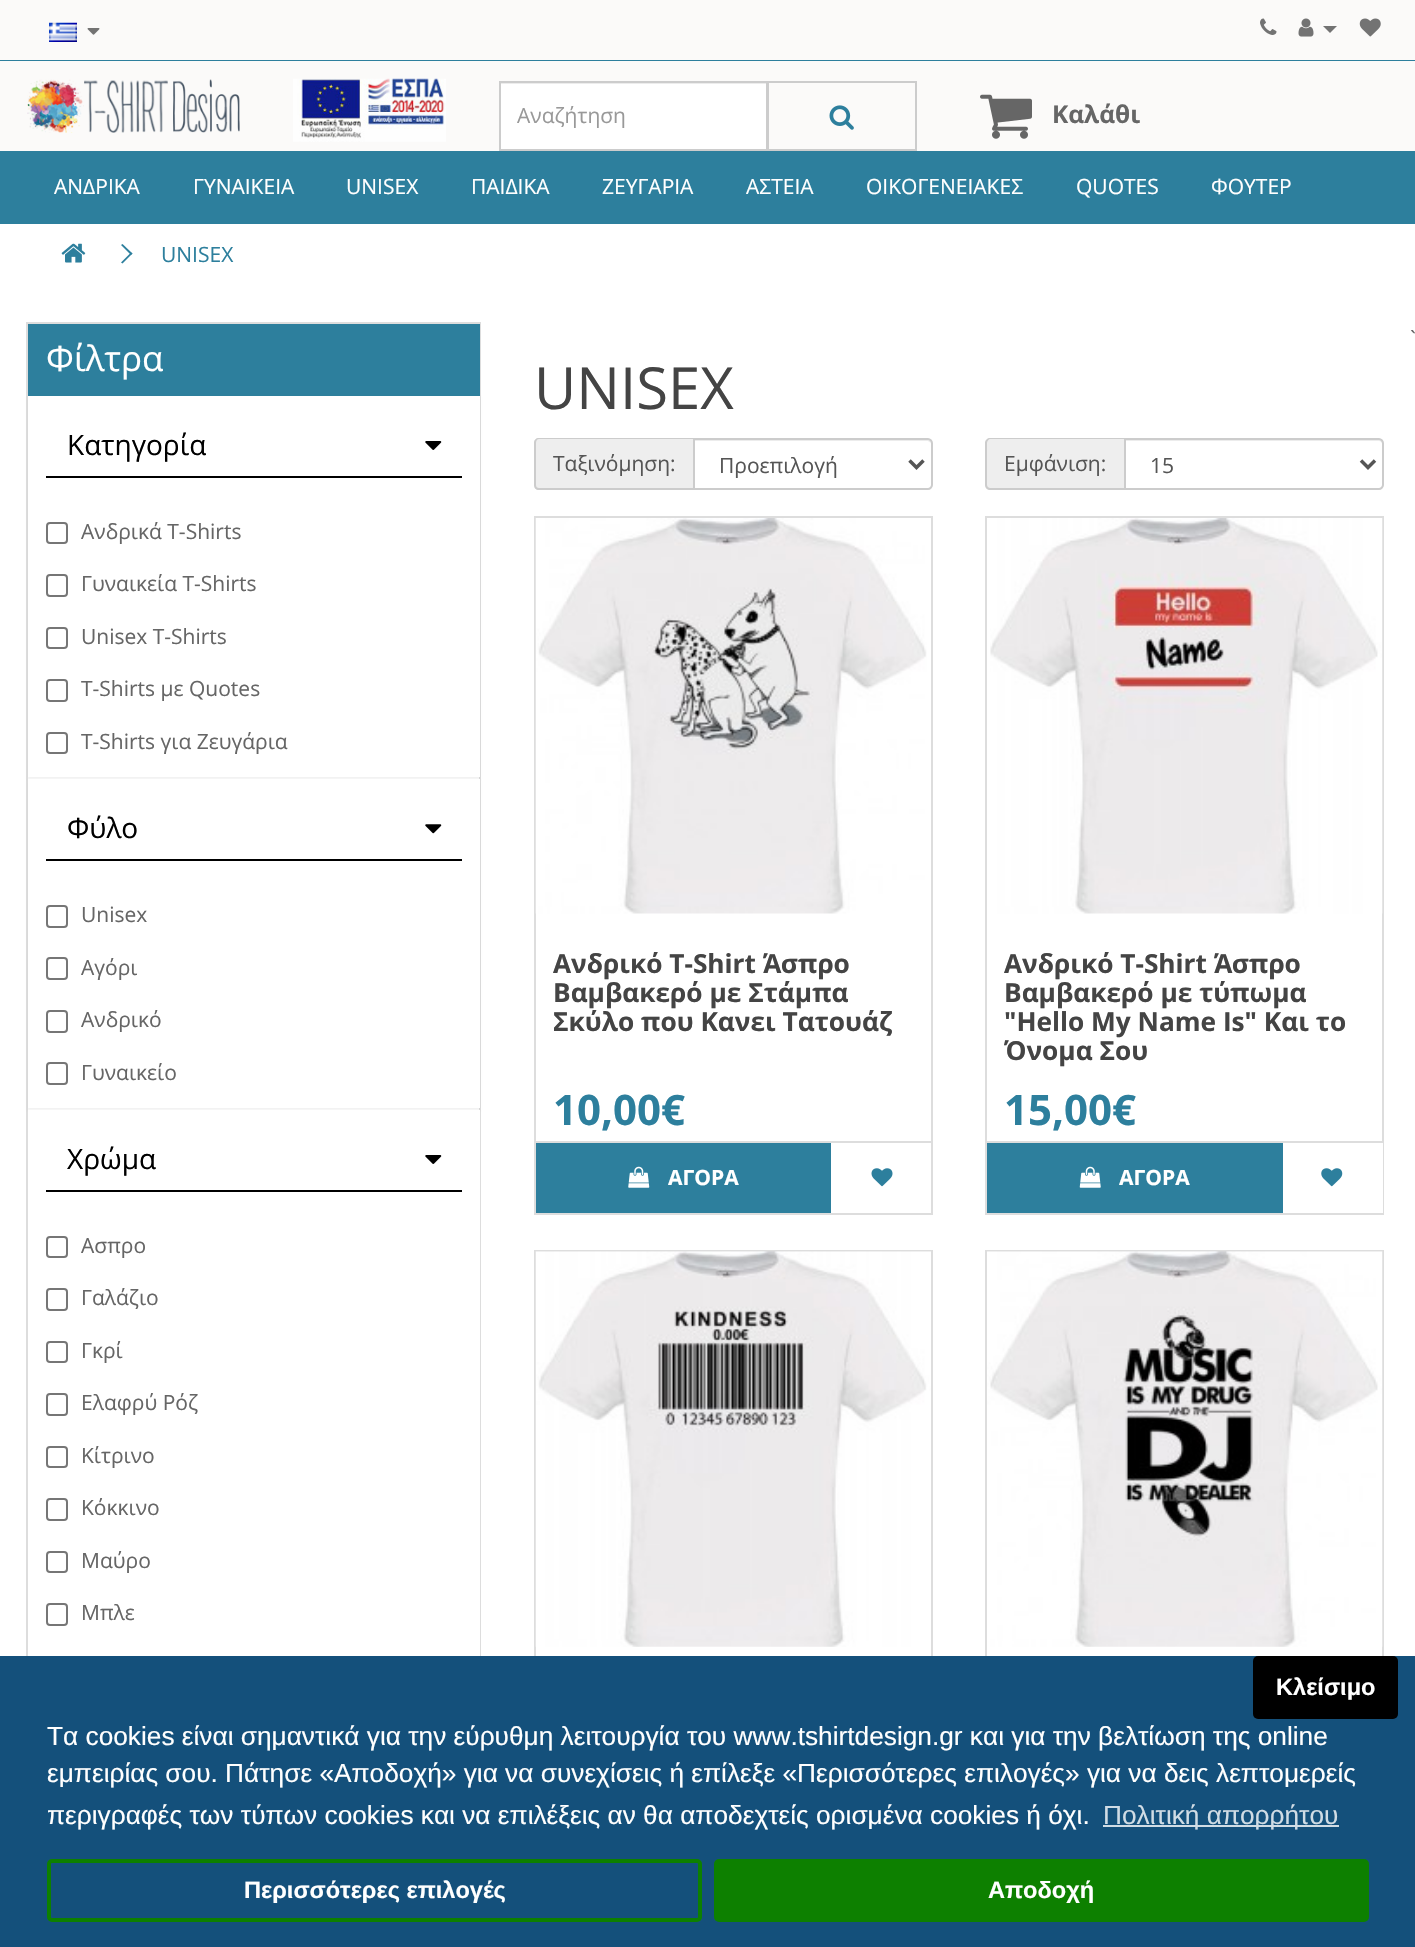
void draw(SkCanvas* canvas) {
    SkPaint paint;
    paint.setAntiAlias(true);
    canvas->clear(0xFFFFFFFF);
    paint.setColor(0xFFFBFAF9);
    canvas->drawRect(SkRect::MakeXYWH(0, 0, 1415, 60), paint);
    paint.setColor(0xFF2D7F9D);
    canvas->drawRect(SkRect::MakeXYWH(0, 60, 1415, 1), paint);
    canvas->drawImageRect(SkImages::DeferredFromEncodedData(SkData::MakeFromFileName("img1.png")), SkRect::MakeXYWH(49, 22, 28, 20), SkSamplingOptions());
    canvas->drawImageRect(SkImages::DeferredFromEncodedData(SkData::MakeFromFileName("img2.png")), SkRect::MakeXYWH(87, 28, 13, 7), SkSamplingOptions());
    canvas->drawImageRect(SkImages::DeferredFromEncodedData(SkData::MakeFromFileName("img3.png")), SkRect::MakeXYWH(1260, 18, 17, 17), SkSamplingOptions());
    canvas->drawImageRect(SkImages::DeferredFromEncodedData(SkData::MakeFromFileName("img4.png")), SkRect::MakeXYWH(1298, 18, 16, 19), SkSamplingOptions());
    paint.setColor(0xFF737373);
    canvas->drawPath(SkPathBuilder().moveTo(1323, 26).lineTo(1337, 26).lineTo(1330, 33).close().detach(), paint);
    canvas->drawImageRect(SkImages::DeferredFromEncodedData(SkData::MakeFromFileName("img5.png")), SkRect::MakeXYWH(1359, 18, 22, 19), SkSamplingOptions());
    paint.setColor(0xFFFBFAF9);
    canvas->drawRect(SkRect::MakeXYWH(0, 61, 1415, 90), paint);
    canvas->drawImageRect(SkImages::DeferredFromEncodedData(SkData::MakeFromFileName("img6.png")), SkRect::MakeXYWH(27, 79, 213, 54), SkSamplingOptions());
    canvas->drawImageRect(SkImages::DeferredFromEncodedData(SkData::MakeFromFileName("img7.png")), SkRect::MakeXYWH(293, 78, 153, 64), SkSamplingOptions());
    paint.setColor(0xFFFFFFFF);
    canvas->drawRect(SkRect::MakeXYWH(501, 84, 265, 65), paint);
    paint.setColor(0xFFECECEC);
    canvas->drawRect(SkRect::MakeXYWH(501, 83, 266, 1), paint);
    paint.setStyle(SkPaint::kStroke_Style);
    paint.setStrokeWidth(2);
    paint.setColor(0xFFCCCCCC);
    canvas->drawRect(SkRect::MakeXYWH(500, 82, 267, 68), paint);
    SkFont font1(fontMgr->matchFamilyStyle("Open Sans", SkFontStyle::Normal()), 21);
    font1.setSubpixel(true);
    paint.setStyle(SkPaint::kFill_Style);
    paint.setColor(0xFF999999);
    canvas->drawString("Αναζήτηση", 517, 123, font1, paint);
    paint.setStyle(SkPaint::kStroke_Style);
    paint.setColor(0xFFCCCCCC);
    canvas->drawRect(SkRect::MakeXYWH(768, 82, 148, 68), paint);
    canvas->drawImageRect(SkImages::DeferredFromEncodedData(SkData::MakeFromFileName("img8.png")), SkRect::MakeXYWH(829, 105, 25, 25), SkSamplingOptions());
    canvas->drawImageRect(SkImages::DeferredFromEncodedData(SkData::MakeFromFileName("img9.png")), SkRect::MakeXYWH(980, 94, 52, 45), SkSamplingOptions());
    SkFont font2(fontMgr->matchFamilyStyle("Open Sans", SkFontStyle::Bold()), 24.5f);
    font2.setSubpixel(true);
    paint.setStyle(SkPaint::kFill_Style);
    paint.setColor(0xFF666666);
    canvas->drawString("Καλάθι", 1052, 123, font2, paint);
    paint.setColor(0xFF2D7F9D);
    canvas->drawRect(SkRect::MakeXYWH(0, 151, 1415, 73), paint);
    paint.setColor(0xFFFFFFFF);
    canvas->drawString("ΑΝΔΡΙΚΑ", 54, 194, font1, paint);
    canvas->drawString("ΓΥΝΑΙΚΕΙΑ", 193, 194, font1, paint);
    canvas->drawString("UNISEX", 346, 194, font1, paint);
    canvas->drawString("ΠΑΙΔΙΚΑ", 471, 194, font1, paint);
    canvas->drawString("ΖΕΥΓΑΡΙΑ", 602, 194, font1, paint);
    canvas->drawString("ΑΣΤΕΙΑ", 746, 194, font1, paint);
    canvas->drawString("ΟΙΚΟΓΕΝΕΙΑΚΕΣ", 866, 194, font1, paint);
    canvas->drawString("QUOTES", 1076, 194, font1, paint);
    canvas->drawString("ΦΟΥΤΕΡ", 1211, 194, font1, paint);
    canvas->drawImageRect(SkImages::DeferredFromEncodedData(SkData::MakeFromFileName("img10.png")), SkRect::MakeXYWH(61, 243, 25, 20), SkSamplingOptions());
    paint.setColor(0xFF2D7F9D);
    canvas->drawPath(SkPathBuilder().moveTo(121, 245).lineTo(122.5f, 244).lineTo(132.5f, 253.5f).lineTo(131, 255).close().detach(), paint);
    canvas->drawPath(SkPathBuilder().moveTo(121, 262.5f).lineTo(131, 252.5f).lineTo(132.5f, 253.5f).lineTo(122.5f, 263.5f).close().detach(), paint);
    canvas->drawString("UNISEX", 161, 262, font1, paint);
    paint.setColor(0xFF666666);
    canvas->drawString("`", 1410, 346, font1, paint);
    paint.setStyle(SkPaint::kStroke_Style);
    paint.setColor(0xFFDDDDDD);
    canvas->drawRect(SkRect::MakeXYWH(27, 323, 453, 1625), paint);
    paint.setStyle(SkPaint::kFill_Style);
    paint.setColor(0xFF2D7F9D);
    canvas->drawRect(SkRect::MakeXYWH(28, 324, 452, 72), paint);
    SkFont font3(fontMgr->matchFamilyStyle("Open Sans", SkFontStyle::Normal()), 35);
    font3.setSubpixel(true);
    paint.setColor(0xFFFFFFFF);
    canvas->drawString("Φίλτρα", 46, 371, font3, paint);
    paint.setColor(0x0D000000);
    paint.setMaskFilter(SkMaskFilter::MakeBlur(kNormal_SkBlurStyle, 1));
    canvas->drawRect(SkRect::MakeXYWH(28, 397, 452, 382), paint);
    paint.setMaskFilter(nullptr);
    paint.setColor(0xFFFFFFFF);
    canvas->drawRect(SkRect::MakeXYWH(28, 396, 452, 381), paint);
    paint.setColor(0xFF000000);
    canvas->drawRect(SkRect::MakeXYWH(46, 476, 416, 2), paint);
    SkFont font4(fontMgr->matchFamilyStyle("Open Sans", SkFontStyle::Normal()), 28);
    font4.setSubpixel(true);
    canvas->drawString("Κατηγορία", 67, 455, font4, paint);
    canvas->drawImageRect(SkImages::DeferredFromEncodedData(SkData::MakeFromFileName("img11.png")), SkRect::MakeXYWH(425, 441, 17, 9), SkSamplingOptions());
    paint.setStyle(SkPaint::kStroke_Style);
    paint.setColor(0xFF767676);
    canvas->drawRoundRect(SkRect::MakeXYWH(47, 523, 20, 20), 3, 3, paint);
    paint.setStyle(SkPaint::kFill_Style);
    paint.setColor(0xFF666666);
    canvas->drawString("Ανδρικά T-Shirts", 81, 539, font1, paint);
    paint.setStyle(SkPaint::kStroke_Style);
    paint.setColor(0xFF767676);
    canvas->drawRoundRect(SkRect::MakeXYWH(47, 575, 20, 21), 3, 3, paint);
    paint.setStyle(SkPaint::kFill_Style);
    paint.setColor(0xFF666666);
    canvas->drawString("Γυναικεία T-Shirts", 81, 591, font1, paint);
    paint.setStyle(SkPaint::kStroke_Style);
    paint.setColor(0xFF767676);
    canvas->drawRoundRect(SkRect::MakeXYWH(47, 628, 20, 20), 3, 3, paint);
    paint.setStyle(SkPaint::kFill_Style);
    paint.setColor(0xFF666666);
    canvas->drawString("Unisex T-Shirts", 81, 644, font1, paint);
    paint.setStyle(SkPaint::kStroke_Style);
    paint.setColor(0xFF767676);
    canvas->drawRoundRect(SkRect::MakeXYWH(47, 680, 20, 21), 3, 3, paint);
    paint.setStyle(SkPaint::kFill_Style);
    paint.setColor(0xFF666666);
    canvas->drawString("T-Shirts με Quotes", 81, 696, font1, paint);
    paint.setStyle(SkPaint::kStroke_Style);
    paint.setColor(0xFF767676);
    canvas->drawRoundRect(SkRect::MakeXYWH(47, 733, 20, 20), 3, 3, paint);
    paint.setStyle(SkPaint::kFill_Style);
    paint.setColor(0xFF666666);
    canvas->drawString("T-Shirts για Ζευγάρια", 81, 749, font1, paint);
    paint.setColor(0x0D000000);
    paint.setMaskFilter(SkMaskFilter::MakeBlur(kNormal_SkBlurStyle, 1));
    canvas->drawRect(SkRect::MakeXYWH(28, 781, 452, 329), paint);
    paint.setMaskFilter(nullptr);
    paint.setColor(0xFFFFFFFF);
    canvas->drawRect(SkRect::MakeXYWH(28, 779, 452, 329), paint);
    paint.setColor(0xFF000000);
    canvas->drawRect(SkRect::MakeXYWH(46, 859, 416, 2), paint);
    canvas->drawString("Φύλο", 67, 838, font4, paint);
    canvas->drawImageRect(SkImages::DeferredFromEncodedData(SkData::MakeFromFileName("img12.png")), SkRect::MakeXYWH(425, 824, 17, 10), SkSamplingOptions());
    paint.setStyle(SkPaint::kStroke_Style);
    paint.setColor(0xFF767676);
    canvas->drawRoundRect(SkRect::MakeXYWH(47, 906, 20, 21), 3, 3, paint);
    paint.setStyle(SkPaint::kFill_Style);
    paint.setColor(0xFF666666);
    canvas->drawString("Unisex", 81, 922, font1, paint);
    paint.setStyle(SkPaint::kStroke_Style);
    paint.setColor(0xFF767676);
    canvas->drawRoundRect(SkRect::MakeXYWH(47, 958, 20, 21), 3, 3, paint);
    paint.setStyle(SkPaint::kFill_Style);
    paint.setColor(0xFF666666);
    canvas->drawString("Αγόρι", 81, 975, font1, paint);
    paint.setStyle(SkPaint::kStroke_Style);
    paint.setColor(0xFF767676);
    canvas->drawRoundRect(SkRect::MakeXYWH(47, 1011, 20, 21), 3, 3, paint);
    paint.setStyle(SkPaint::kFill_Style);
    paint.setColor(0xFF666666);
    canvas->drawString("Ανδρικό", 81, 1027, font1, paint);
    paint.setStyle(SkPaint::kStroke_Style);
    paint.setColor(0xFF767676);
    canvas->drawRoundRect(SkRect::MakeXYWH(47, 1063, 20, 21), 3, 3, paint);
    paint.setStyle(SkPaint::kFill_Style);
    paint.setColor(0xFF666666);
    canvas->drawString("Γυναικείο", 81, 1080, font1, paint);
    paint.setColor(0xFFFFFFFF);
    canvas->drawRect(SkRect::MakeXYWH(28, 1110, 452, 546), paint);
    paint.setColor(0xFF000000);
    canvas->drawRect(SkRect::MakeXYWH(46, 1190, 416, 2), paint);
    canvas->drawString("Χρώμα", 67, 1169, font4, paint);
    canvas->drawImageRect(SkImages::DeferredFromEncodedData(SkData::MakeFromFileName("img11.png")), SkRect::MakeXYWH(425, 1155, 17, 9), SkSamplingOptions());
    paint.setStyle(SkPaint::kStroke_Style);
    paint.setColor(0xFF767676);
    canvas->drawRoundRect(SkRect::MakeXYWH(47, 1237, 20, 20), 3, 3, paint);
    paint.setStyle(SkPaint::kFill_Style);
    paint.setColor(0xFF666666);
    canvas->drawString("Ασπρο", 81, 1253, font1, paint);
    paint.setStyle(SkPaint::kStroke_Style);
    paint.setColor(0xFF767676);
    canvas->drawRoundRect(SkRect::MakeXYWH(47, 1289, 20, 21), 3, 3, paint);
    paint.setStyle(SkPaint::kFill_Style);
    paint.setColor(0xFF666666);
    canvas->drawString("Γαλάζιο", 81, 1305, font1, paint);
    paint.setStyle(SkPaint::kStroke_Style);
    paint.setColor(0xFF767676);
    canvas->drawRoundRect(SkRect::MakeXYWH(47, 1342, 20, 20), 3, 3, paint);
    paint.setStyle(SkPaint::kFill_Style);
    paint.setColor(0xFF666666);
    canvas->drawString("Γκρί", 81, 1358, font1, paint);
    paint.setStyle(SkPaint::kStroke_Style);
    paint.setColor(0xFF767676);
    canvas->drawRoundRect(SkRect::MakeXYWH(47, 1394, 20, 21), 3, 3, paint);
    paint.setStyle(SkPaint::kFill_Style);
    paint.setColor(0xFF666666);
    canvas->drawString("Ελαφρύ Ρόζ", 81, 1410, font1, paint);
    paint.setStyle(SkPaint::kStroke_Style);
    paint.setColor(0xFF767676);
    canvas->drawRoundRect(SkRect::MakeXYWH(47, 1447, 20, 20), 3, 3, paint);
    paint.setStyle(SkPaint::kFill_Style);
    paint.setColor(0xFF666666);
    canvas->drawString("Κίτρινο", 81, 1463, font1, paint);
    paint.setStyle(SkPaint::kStroke_Style);
    paint.setColor(0xFF767676);
    canvas->drawRoundRect(SkRect::MakeXYWH(47, 1499, 20, 21), 3, 3, paint);
    paint.setStyle(SkPaint::kFill_Style);
    paint.setColor(0xFF666666);
    canvas->drawString("Κόκκινο", 81, 1515, font1, paint);
    paint.setStyle(SkPaint::kStroke_Style);
    paint.setColor(0xFF767676);
    canvas->drawRoundRect(SkRect::MakeXYWH(47, 1552, 20, 20), 3, 3, paint);
    paint.setStyle(SkPaint::kFill_Style);
    paint.setColor(0xFF666666);
    canvas->drawString("Μαύρο", 81, 1568, font1, paint);
    paint.setStyle(SkPaint::kStroke_Style);
    paint.setColor(0xFF767676);
    canvas->drawRoundRect(SkRect::MakeXYWH(47, 1604, 20, 21), 3, 3, paint);
    paint.setStyle(SkPaint::kFill_Style);
    paint.setColor(0xFF666666);
    canvas->drawString("Μπλε", 81, 1620, font1, paint);
    SkFont font5(fontMgr->matchFamilyStyle("Open Sans", SkFontStyle::Normal()), 58);
    font5.setSubpixel(true);
    paint.setColor(0xFF444444);
    canvas->drawString("UNISEX", 534, 409, font5, paint);
    paint.setColor(0xFFEEEEEE);
    canvas->drawPath(SkPathBuilder().moveTo(539, 438).lineTo(693, 438).lineTo(693, 490).lineTo(539, 490).cubicTo(536, 490, 534, 488, 534, 485).lineTo(534, 443).cubicTo(534, 440, 536, 438, 539, 438).close().detach(), paint);
    paint.setColor(0xFFCCCCCC);
    canvas->drawPath(SkPathBuilder(SkPathFillType::kEvenOdd).moveTo(539, 438).lineTo(693, 438).lineTo(693, 490).lineTo(539, 490).cubicTo(536, 490, 534, 488, 534, 485).lineTo(534, 443).cubicTo(534, 440, 536, 438, 539, 438).close().moveTo(539, 439).lineTo(693, 439).lineTo(693, 488).lineTo(539, 488).cubicTo(537, 488, 536, 487, 536, 485).lineTo(536, 443).cubicTo(536, 441, 537, 439, 539, 439).close().detach(), paint);
    paint.setColor(0xFF555555);
    canvas->drawString("Ταξινόμηση:", 553, 471, font1, paint);
    paint.setColor(0xFFECECEC);
    canvas->drawPath(SkPathBuilder().moveTo(695, 441).lineTo(928, 441).lineTo(931, 443).lineTo(931, 444).cubicTo(931, 441, 930, 439, 927, 439).lineTo(695, 439).close().detach(), paint);
    paint.setStyle(SkPaint::kStroke_Style);
    paint.setColor(0xFFCCCCCC);
    canvas->drawPath(SkPathBuilder().moveTo(694, 439).lineTo(928, 439).cubicTo(930, 439, 932, 441, 932, 443).lineTo(932, 485).cubicTo(932, 487, 930, 489, 928, 489).lineTo(694, 489).close().detach(), paint);
    paint.setStrokeWidth(3.5f);
    paint.setColor(0xFF555555);
    canvas->drawPath(SkPathBuilder().moveTo(909.5f, 460.5f).lineTo(916.5f, 467.5f).lineTo(923.5f, 460.5f).detach(), paint);
    paint.setStyle(SkPaint::kFill_Style);
    canvas->drawString("Προεπιλογή", 719, 473, font1, paint);
    paint.setColor(0xFFEEEEEE);
    canvas->drawPath(SkPathBuilder().moveTo(990, 438).lineTo(1124, 438).lineTo(1124, 490).lineTo(990, 490).cubicTo(987, 490, 985, 488, 985, 485).lineTo(985, 443).cubicTo(985, 440, 987, 438, 990, 438).close().detach(), paint);
    paint.setColor(0xFFCCCCCC);
    canvas->drawPath(SkPathBuilder(SkPathFillType::kEvenOdd).moveTo(990, 438).lineTo(1124, 438).lineTo(1124, 490).lineTo(990, 490).cubicTo(988, 490, 985, 488, 985, 485).lineTo(985, 443).cubicTo(985, 440, 988, 438, 990, 438).close().moveTo(990, 439).lineTo(1124, 439).lineTo(1124, 488).lineTo(990, 488).cubicTo(989, 488, 987, 487, 987, 485).lineTo(987, 443).cubicTo(987, 441, 989, 439, 990, 439).close().detach(), paint);
    paint.setColor(0xFF555555);
    canvas->drawString("Εμφάνιση:", 1004, 471, font1, paint);
    paint.setColor(0xFFECECEC);
    canvas->drawPath(SkPathBuilder().moveTo(1125, 441).lineTo(1379, 441).cubicTo(1381, 441, 1382, 443, 1382, 444).lineTo(1382, 487).cubicTo(1383, 486, 1383, 485, 1383, 484).lineTo(1383, 443).cubicTo(1383, 441, 1381, 439, 1379, 439).lineTo(1125, 439).close().detach(), paint);
    paint.setStyle(SkPaint::kStroke_Style);
    paint.setStrokeWidth(2);
    paint.setColor(0xFFCCCCCC);
    canvas->drawPath(SkPathBuilder().moveTo(1125, 439).lineTo(1379, 439).cubicTo(1381, 439, 1383, 441, 1383, 443).lineTo(1383, 485).cubicTo(1383, 487, 1381, 489, 1379, 489).lineTo(1125, 489).close().detach(), paint);
    paint.setStrokeWidth(3.5f);
    paint.setColor(0xFF555555);
    canvas->drawPath(SkPathBuilder().moveTo(1361, 460.5f).lineTo(1368, 467.5f).lineTo(1375, 460.5f).detach(), paint);
    paint.setStyle(SkPaint::kFill_Style);
    canvas->drawString("15", 1150, 473, font1, paint);
    paint.setStyle(SkPaint::kStroke_Style);
    paint.setStrokeWidth(2);
    paint.setColor(0xFFDDDDDD);
    canvas->drawRect(SkRect::MakeXYWH(535, 517, 397, 697), paint);
    canvas->drawImageRect(SkImages::DeferredFromEncodedData(SkData::MakeFromFileName("img13.png")), SkRect::MakeXYWH(535, 518, 392, 396), SkSamplingOptions());
    SkFont font6(fontMgr->matchFamilyStyle("Open Sans", SkFontStyle::Bold()), 26.25f);
    font6.setSubpixel(true);
    paint.setStyle(SkPaint::kFill_Style);
    paint.setColor(0xFF444444);
    canvas->drawString("Ανδρικό T-Shirt Άσπρο", 553, 973, font6, paint);
    canvas->drawString("Βαμβακερό με Στάμπα", 553, 1002, font6, paint);
    canvas->drawString("Σκύλο που Κανει Τατουάζ", 553, 1031, font6, paint);
    SkFont font7(fontMgr->matchFamilyStyle("Open Sans", SkFontStyle::Bold()), 42);
    font7.setSubpixel(true);
    paint.setColor(0xFF2D7F9D);
    canvas->drawString("10,00€", 553, 1125, font7, paint);
    paint.setColor(0xFFDDDDDD);
    canvas->drawRect(SkRect::MakeXYWH(536, 1141, 395, 2), paint);
    paint.setColor(0xFF2D7F9D);
    canvas->drawRect(SkRect::MakeXYWH(536, 1143, 295, 70), paint);
    canvas->drawImageRect(SkImages::DeferredFromEncodedData(SkData::MakeFromFileName("img14.png")), SkRect::MakeXYWH(628, 1166, 22, 22), SkSamplingOptions());
    SkFont font8(fontMgr->matchFamilyStyle("Open Sans", SkFontStyle::Bold()), 21);
    font8.setSubpixel(true);
    paint.setColor(0xFFFFFFFF);
    canvas->drawString("ΑΓΟΡΑ", 668, 1185, font8, paint);
    canvas->drawImageRect(SkImages::DeferredFromEncodedData(SkData::MakeFromFileName("img15.png")), SkRect::MakeXYWH(871, 1168, 22, 19), SkSamplingOptions());
    paint.setStyle(SkPaint::kStroke_Style);
    paint.setColor(0xFFDDDDDD);
    canvas->drawRect(SkRect::MakeXYWH(986, 517, 397, 697), paint);
    canvas->drawImageRect(SkImages::DeferredFromEncodedData(SkData::MakeFromFileName("img16.png")), SkRect::MakeXYWH(990, 518, 393, 396), SkSamplingOptions());
    paint.setStyle(SkPaint::kFill_Style);
    paint.setColor(0xFF444444);
    canvas->drawString("Ανδρικό T-Shirt Άσπρο", 1004, 973, font6, paint);
    canvas->drawString("Βαμβακερό με τύπωμα", 1004, 1002, font6, paint);
    canvas->drawString("\"Hello My Name Is\" Και το", 1004, 1031, font6, paint);
    canvas->drawString("Όνομα Σου", 1004, 1060, font6, paint);
    paint.setColor(0xFF2D7F9D);
    canvas->drawString("15,00€", 1004, 1125, font7, paint);
    paint.setColor(0xFFDDDDDD);
    canvas->drawRect(SkRect::MakeXYWH(987, 1141, 396, 2), paint);
    paint.setColor(0xFF2D7F9D);
    canvas->drawRect(SkRect::MakeXYWH(987, 1143, 296, 70), paint);
    canvas->drawImageRect(SkImages::DeferredFromEncodedData(SkData::MakeFromFileName("img17.png")), SkRect::MakeXYWH(1079, 1166, 22, 22), SkSamplingOptions());
    paint.setColor(0xFFFFFFFF);
    canvas->drawString("ΑΓΟΡΑ", 1119, 1185, font8, paint);
    canvas->drawRect(SkRect::MakeXYWH(1382, 1143, 1, 70), paint);
    canvas->drawImageRect(SkImages::DeferredFromEncodedData(SkData::MakeFromFileName("img18.png")), SkRect::MakeXYWH(1321, 1168, 22, 19), SkSamplingOptions());
    paint.setStyle(SkPaint::kStroke_Style);
    paint.setColor(0xFFDDDDDD);
    canvas->drawRect(SkRect::MakeXYWH(535, 1251, 397, 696), paint);
    canvas->drawImageRect(SkImages::DeferredFromEncodedData(SkData::MakeFromFileName("img19.png")), SkRect::MakeXYWH(535, 1251, 396, 396), SkSamplingOptions());
    canvas->drawRect(SkRect::MakeXYWH(986, 1251, 397, 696), paint);
    canvas->drawImageRect(SkImages::DeferredFromEncodedData(SkData::MakeFromFileName("img20.png")), SkRect::MakeXYWH(987, 1251, 396, 396), SkSamplingOptions());
    paint.setStyle(SkPaint::kFill_Style);
    paint.setColor(0xFF14507B);
    canvas->drawRect(SkRect::MakeXYWH(0, 1656, 1415, 291), paint);
    paint.setColor(0xFF000000);
    canvas->drawRoundRect(SkRect::MakeXYWH(1253, 1656, 145, 63), 5, 5, paint);
    SkFont font9(fontMgr->matchFamilyStyle("Liberation Sans", SkFontStyle::Bold()), 23.6f);
    font9.setSubpixel(true);
    paint.setColor(0xFFFFFFFF);
    canvas->drawString("Κλείσιμο", 1276, 1695, font9, paint);
    paint.setStyle(SkPaint::kStroke_Style);
    paint.setStrokeWidth(4);
    paint.setColor(0xFF0D8000);
    canvas->drawRoundRect(SkRect::MakeXYWH(49, 1861, 651, 59), 3, 3, paint);
    paint.setStyle(SkPaint::kFill_Style);
    paint.setColor(0xFFFFFFFF);
    canvas->drawString("Περισσότερες επιλογές", 244, 1898, font9, paint);
    paint.setColor(0xFF0D8000);
    canvas->drawRoundRect(SkRect::MakeXYWH(714, 1859, 655, 63), 5, 5, paint);
    paint.setColor(0xFFFFFFFF);
    canvas->drawString("Αποδοχή", 988, 1898, font9, paint);
    SkFont font10(fontMgr->matchFamilyStyle("Liberation Sans", SkFontStyle::Normal()), 26.25f);
    font10.setSubpixel(true);
    canvas->drawString("Τα cookies είναι σημαντικά για την εύρυθμη λειτουργία του www.tshirtdesign.gr και για την βελτίωση της online", 47, 1745, font10, paint);
    canvas->drawString("εμπειρίας σου. Πάτησε «Αποδοχή» για να συνεχίσεις ή επίλεξε «Περισσότερες επιλογές» για να δεις λεπτομερείς", 47, 1782, font10, paint);
    canvas->drawString("περιγραφές των τύπων cookies και να επιλέξεις αν θα αποδεχτείς ορισμένα cookies ή όχι.", 47, 1824, font10, paint);
    paint.setColor(0xFFD0DCE5);
    canvas->drawRect(SkRect::MakeXYWH(1103, 1825, 236, 2), paint);
    canvas->drawString("Πολιτική απορρήτου", 1103, 1824, font10, paint);
}
